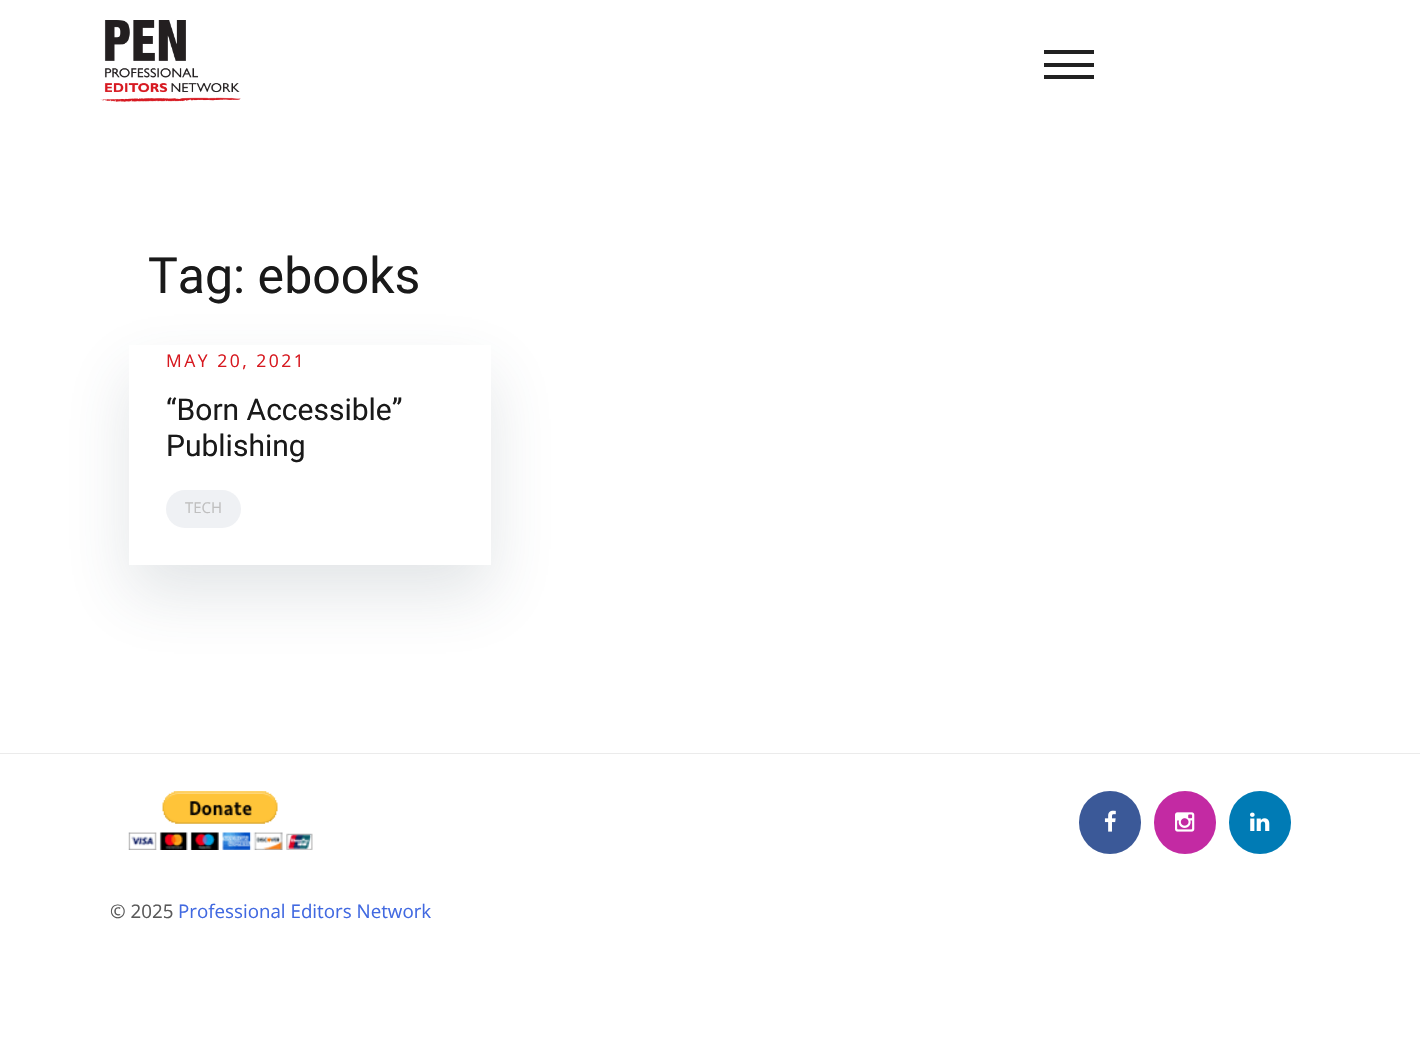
void draw(SkCanvas* canvas) {
    SkPaint paint;
    paint.setAntiAlias(true);
    auto spacedText = [&](const char* s, float x, float y, const SkFont& font, const SkPaint& ink, float letter, float word) {
        std::vector<SkGlyphID> glyphs(font.countText(s, strlen(s), SkTextEncoding::kUTF8));
        std::vector<float> xs(glyphs.size());
        font.textToGlyphs(s, strlen(s), SkTextEncoding::kUTF8, glyphs);
        font.getXPos(glyphs, xs, x);
        float extra = 0;
        for (size_t i = 0; i < glyphs.size(); i++) {
            xs[i] += extra;
            extra += letter + word * (glyphs[i] == font.unicharToGlyph(' '));
        }
        canvas->drawTextBlob(SkTextBlob::MakeFromPosHGlyphs(glyphs, xs, y, font), 0, 0, ink);
    };
    canvas->clear(0xFFFFFFFF);
    canvas->drawImageRect(SkImages::DeferredFromEncodedData(SkData::MakeFromFileName("img1.png")), SkRect::MakeXYWH(100, 20, 141, 82), SkSamplingOptions());
    paint.setColor(0xFF212121);
    canvas->drawRect(SkRect::MakeXYWH(1044, 63, 50, 4), paint);
    canvas->drawRect(SkRect::MakeXYWH(1044, 50, 50, 4), paint);
    canvas->drawRect(SkRect::MakeXYWH(1044, 75, 50, 4), paint);
    SkFont font1(fontMgr->matchFamilyStyle("Roboto", SkFontStyle::Normal()), 50);
    font1.setSubpixel(true);
    paint.setColor(0xFF191919);
    canvas->drawString("Tag: ebooks", 148, 293, font1, paint);
    canvas->save();
    canvas->clipPath(SkPathBuilder(SkPathFillType::kEvenOdd).moveTo(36, 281).lineTo(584, 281).lineTo(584, 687).lineTo(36, 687).close().moveTo(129, 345).lineTo(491, 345).lineTo(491, 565).lineTo(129, 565).close().detach(), true);
    paint.setColor(0x263D5260);
    paint.setMaskFilter(SkMaskFilter::MakeBlur(kNormal_SkBlurStyle, 30.5f));
    canvas->drawRect(SkRect::MakeXYWH(129, 374, 362, 220), paint);
    paint.setMaskFilter(nullptr);
    canvas->restore();
    SkFont font2(fontMgr->matchFamilyStyle("Open Sans", SkFontStyle::Normal()), 17.5f);
    font2.setSubpixel(true);
    paint.setColor(0xFFD71920);
    spacedText("MAY 20, 2021", 166, 367, font2, paint, 2.5f, 0);
    SkFont font3(fontMgr->matchFamilyStyle("Roboto", SkFontStyle::Normal()), 30);
    font3.setSubpixel(true);
    paint.setColor(0xFF191919);
    canvas->drawString("“Born Accessible”", 166, 420, font3, paint);
    canvas->drawString("Publishing", 166, 456, font3, paint);
    paint.setColor(0xFFEFF1F4);
    canvas->drawRoundRect(SkRect::MakeXYWH(166, 490, 75, 38), 19, 19, paint);
    SkFont font4(fontMgr->matchFamilyStyle("Open Sans", SkFontStyle::Normal()), 15);
    font4.setSubpixel(true);
    paint.setColor(0xFFBFBFBF);
    canvas->drawString("TECH", 185, 513, font4, paint);
    paint.setColor(0xFFEBEBEB);
    canvas->drawRect(SkRect::MakeXYWH(0, 753, 1420, 1), paint);
    canvas->drawImageRect(SkImages::DeferredFromEncodedData(SkData::MakeFromFileName("img2.png")), SkRect::MakeXYWH(128, 791, 185, 59), SkSamplingOptions());
    paint.setColor(0xFF3B5998);
    canvas->drawRoundRect(SkRect::MakeXYWH(1079, 791, 62, 63), 31, 31, paint);
    canvas->drawImageRect(SkImages::DeferredFromEncodedData(SkData::MakeFromFileName("img3.png")), SkRect::MakeXYWH(1104, 810, 12, 22), SkSamplingOptions());
    paint.setColor(0xFFC32AA3);
    canvas->drawRoundRect(SkRect::MakeXYWH(1154, 791, 62, 63), 31, 31, paint);
    canvas->drawImageRect(SkImages::DeferredFromEncodedData(SkData::MakeFromFileName("img4.png")), SkRect::MakeXYWH(1175, 812, 20, 20), SkSamplingOptions());
    paint.setColor(0xFF007BB5);
    canvas->drawRoundRect(SkRect::MakeXYWH(1229, 791, 62, 63), 31, 31, paint);
    canvas->drawImageRect(SkImages::DeferredFromEncodedData(SkData::MakeFromFileName("img5.png")), SkRect::MakeXYWH(1250, 812, 20, 19), SkSamplingOptions());
    SkFont font5(fontMgr->matchFamilyStyle("Open Sans", SkFontStyle::Normal()), 18.75f);
    font5.setSubpixel(true);
    paint.setColor(0xFF595959);
    canvas->drawString("© 2025", 110, 918, font5, paint);
    paint.setColor(0xFF4169E1);
    canvas->drawString("Professional Editors Network", 178, 918, font5, paint);
}
